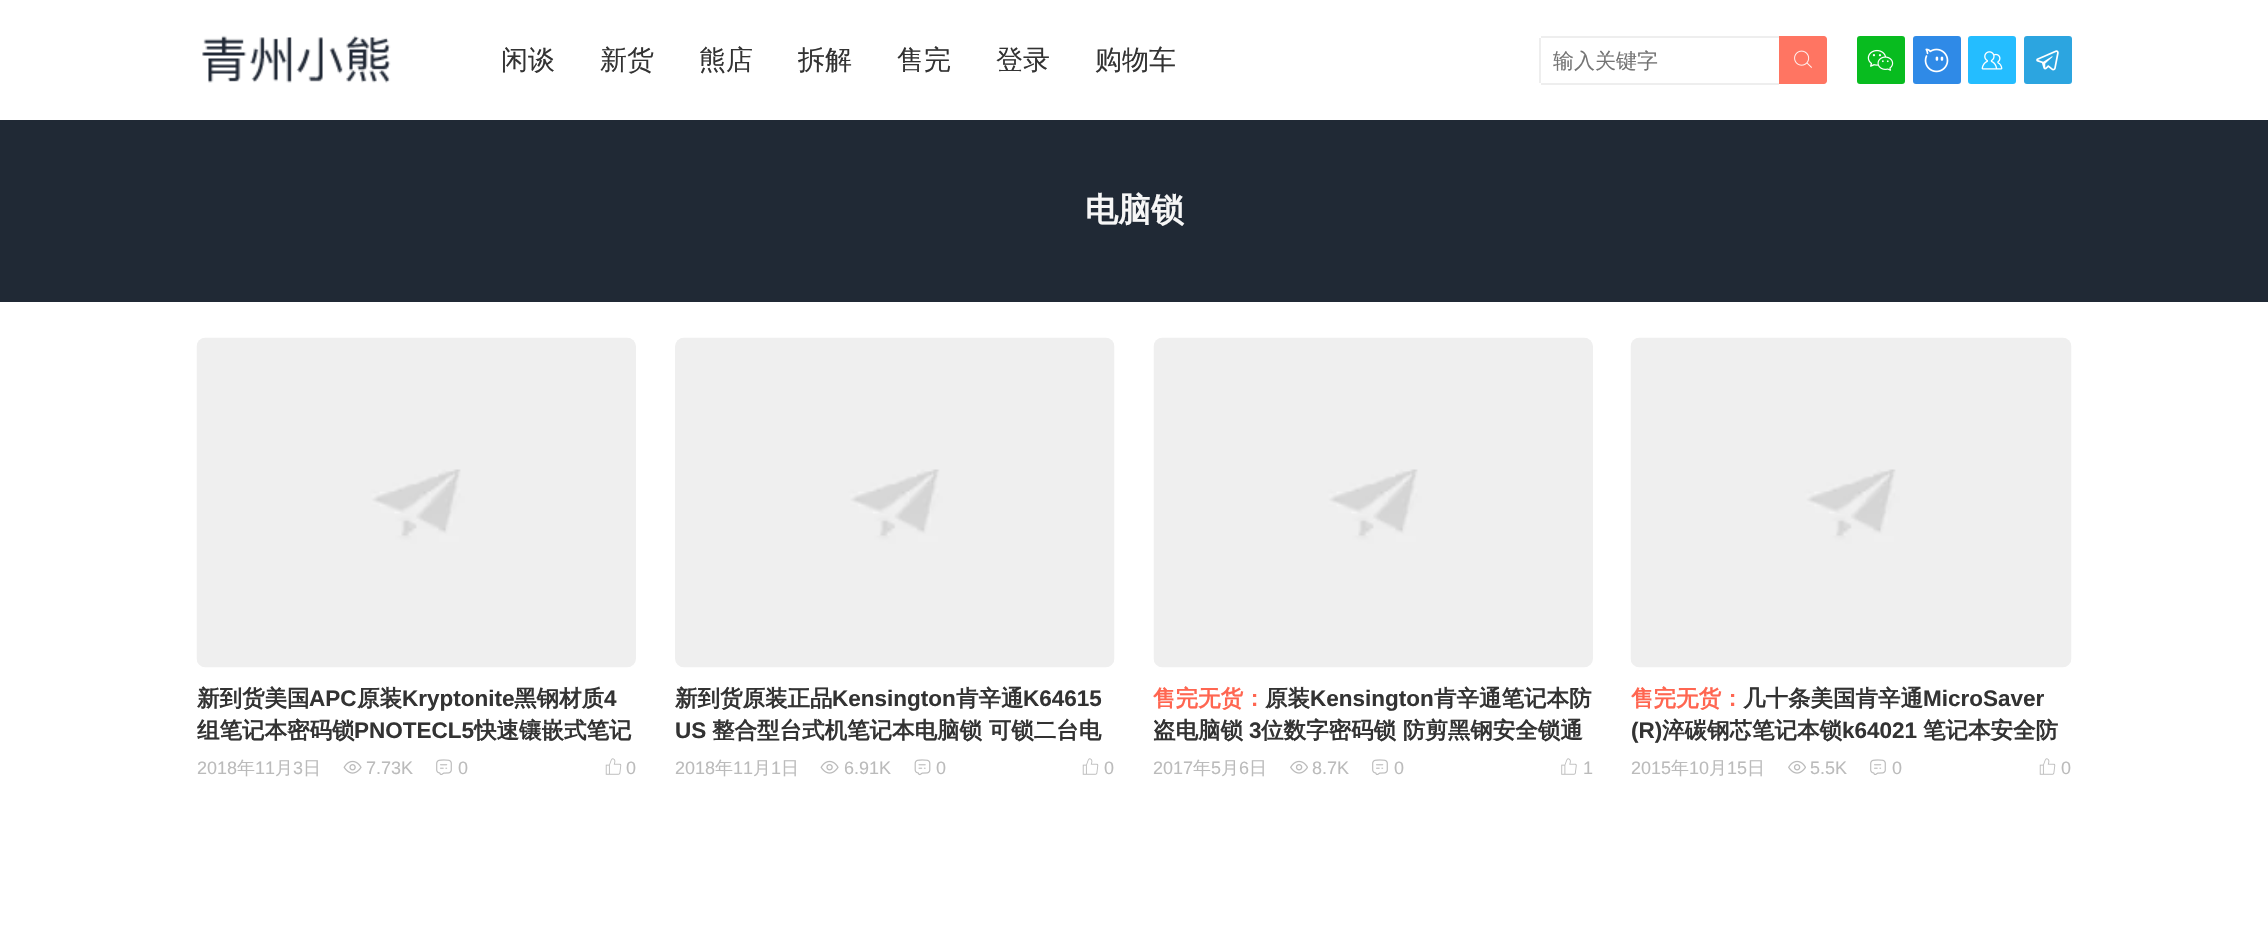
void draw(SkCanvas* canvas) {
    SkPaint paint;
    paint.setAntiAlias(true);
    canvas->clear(0xFFFFFFFF);
    canvas->drawImageRect(SkImages::DeferredFromEncodedData(SkData::MakeFromFileName("img1.png")), SkRect::MakeXYWH(202, 35, 189, 48), SkSamplingOptions());
    SkFont font1(fontMgr->matchFamilyStyle("WenQuanYi Zen Hei", SkFontStyle(500, SkFontStyle::kNormal_Width, SkFontStyle::kUpright_Slant)), 27);
    font1.setSubpixel(true);
    paint.setColor(0xFF333333);
    canvas->drawString("闲谈", 501, 69, font1, paint);
    canvas->drawString("新货", 600, 69, font1, paint);
    canvas->drawString("熊店", 699, 69, font1, paint);
    canvas->drawString("拆解", 798, 69, font1, paint);
    canvas->drawString("售完", 897, 69, font1, paint);
    canvas->drawString("登录", 996, 69, font1, paint);
    canvas->drawString("购物车", 1095, 69, font1, paint);
    paint.setColor(0xFFEEEEEE);
    canvas->drawRect(SkRect::MakeXYWH(1541, 36, 238, 2), paint);
    canvas->drawRect(SkRect::MakeXYWH(1541, 83, 238, 2), paint);
    canvas->drawRect(SkRect::MakeXYWH(1539, 38, 2, 45), paint);
    canvas->save();
    canvas->clipRect(SkRect::MakeXYWH(1553, 48, 214, 27));
    SkFont font2(fontMgr->matchFamilyStyle("WenQuanYi Zen Hei", SkFontStyle(500, SkFontStyle::kNormal_Width, SkFontStyle::kUpright_Slant)), 21);
    font2.setSubpixel(true);
    paint.setColor(0xFF757575);
    canvas->drawString("输入关键字", 1553, 68, font2, paint);
    canvas->restore();
    paint.setColor(0xFFFF7562);
    canvas->drawPath(SkPathBuilder().moveTo(1779, 36).lineTo(1824, 36).cubicTo(1825.5f, 36, 1827, 37.5f, 1827, 39).lineTo(1827, 81).cubicTo(1827, 82.5f, 1825.5f, 84, 1824, 84).lineTo(1779, 84).close().detach(), paint);
    canvas->drawImageRect(SkImages::DeferredFromEncodedData(SkData::MakeFromFileName("img2.png")), SkRect::MakeXYWH(1794, 50, 18, 18), SkSamplingOptions());
    paint.setColor(0xFF08BC1F);
    canvas->drawRoundRect(SkRect::MakeXYWH(1857, 36, 48, 48), 3, 3, paint);
    canvas->drawImageRect(SkImages::DeferredFromEncodedData(SkData::MakeFromFileName("img3.png")), SkRect::MakeXYWH(1867, 49, 27, 22), SkSamplingOptions());
    paint.setColor(0xFF2F8AE7);
    canvas->drawRoundRect(SkRect::MakeXYWH(1913, 36, 48, 48), 3, 3, paint);
    canvas->drawImageRect(SkImages::DeferredFromEncodedData(SkData::MakeFromFileName("img4.png")), SkRect::MakeXYWH(1924, 48, 25, 25), SkSamplingOptions());
    paint.setColor(0xFF24BDFF);
    canvas->drawRoundRect(SkRect::MakeXYWH(1968, 36, 48, 48), 3, 3, paint);
    canvas->drawImageRect(SkImages::DeferredFromEncodedData(SkData::MakeFromFileName("img5.png")), SkRect::MakeXYWH(1981, 51, 22, 19), SkSamplingOptions());
    paint.setColor(0xFF2CA5E0);
    canvas->drawRoundRect(SkRect::MakeXYWH(2024, 36, 48, 48), 3, 3, paint);
    canvas->drawImageRect(SkImages::DeferredFromEncodedData(SkData::MakeFromFileName("img6.png")), SkRect::MakeXYWH(2036, 50, 23, 21), SkSamplingOptions());
    paint.setColor(0xFF202935);
    canvas->drawRect(SkRect::MakeXYWH(0, 120, 2268, 182), paint);
    SkFont font3(fontMgr->matchFamilyStyle("WenQuanYi Zen Hei", SkFontStyle::Bold()), 33);
    font3.setSubpixel(true);
    paint.setColor(0xFFF6F6F6);
    canvas->drawString("电脑锁", 1085, 221, font3, paint);
    canvas->drawImageRect(SkImages::DeferredFromEncodedData(SkData::MakeFromFileName("img7.png")), SkRect::MakeXYWH(196, 337, 440, 331), SkSamplingOptions());
    SkFont font4(fontMgr->matchFamilyStyle("WenQuanYi Zen Hei", SkFontStyle::Bold()), 22.5f);
    font4.setSubpixel(true);
    paint.setColor(0xFF333333);
    canvas->drawString("新到货美国", 197, 706, font4, paint);
    SkFont font5(fontMgr->matchFamilyStyle("Liberation Sans", SkFontStyle::Bold()), 22.5f);
    font5.setSubpixel(true);
    canvas->drawString("APC", 309, 706, font5, paint);
    canvas->drawString("原装", 357, 706, font4, paint);
    canvas->drawString("Kryptonite", 402, 706, font5, paint);
    canvas->drawString("黑钢材质", 514, 706, font4, paint);
    canvas->drawString("4", 604, 706, font5, paint);
    canvas->drawString("组笔记本密码锁", 197, 738, font4, paint);
    canvas->drawString("PNOTECL5", 354, 738, font5, paint);
    canvas->drawString("快速镶嵌式笔记", 474, 738, font4, paint);
    SkFont font6(fontMgr->matchFamilyStyle("Liberation Sans", SkFontStyle::Normal()), 18);
    font6.setSubpixel(true);
    paint.setColor(0xFFBBBBBB);
    canvas->drawString("2018", 197, 774, font6, paint);
    SkFont font7(fontMgr->matchFamilyStyle("WenQuanYi Zen Hei", SkFontStyle(500, SkFontStyle::kNormal_Width, SkFontStyle::kUpright_Slant)), 18);
    font7.setSubpixel(true);
    canvas->drawString("年", 237, 774, font7, paint);
    canvas->drawString("11", 255, 774, font6, paint);
    canvas->drawString("月", 275, 774, font7, paint);
    canvas->drawString("3", 293, 774, font6, paint);
    canvas->drawString("日", 303, 774, font7, paint);
    canvas->drawImageRect(SkImages::DeferredFromEncodedData(SkData::MakeFromFileName("img8.png")), SkRect::MakeXYWH(343, 760, 19, 14), SkSamplingOptions());
    canvas->drawString("7.73K", 366, 774, font6, paint);
    canvas->drawImageRect(SkImages::DeferredFromEncodedData(SkData::MakeFromFileName("img9.png")), SkRect::MakeXYWH(436, 759, 16, 16), SkSamplingOptions());
    canvas->drawString("0", 458, 774, font6, paint);
    canvas->drawImageRect(SkImages::DeferredFromEncodedData(SkData::MakeFromFileName("img10.png")), SkRect::MakeXYWH(605, 758, 17, 17), SkSamplingOptions());
    canvas->drawString("0", 626, 774, font6, paint);
    canvas->drawImageRect(SkImages::DeferredFromEncodedData(SkData::MakeFromFileName("img11.png")), SkRect::MakeXYWH(675, 337, 440, 331), SkSamplingOptions());
    paint.setColor(0xFF333333);
    canvas->drawString("新到货原装正品", 675, 706, font4, paint);
    canvas->drawString("Kensington", 832, 706, font5, paint);
    canvas->drawString("肯辛通", 956, 706, font4, paint);
    canvas->drawString("K64615", 1023, 706, font5, paint);
    canvas->drawString("US", 675, 738, font5, paint);
    canvas->drawString("整合型台式机笔记本电脑锁 可锁二台电", 712, 738, font4, paint);
    paint.setColor(0xFFBBBBBB);
    canvas->drawString("2018", 675, 774, font6, paint);
    canvas->drawString("年", 715, 774, font7, paint);
    canvas->drawString("11", 733, 774, font6, paint);
    canvas->drawString("月", 753, 774, font7, paint);
    canvas->drawString("1", 771, 774, font6, paint);
    canvas->drawString("日", 781, 774, font7, paint);
    canvas->drawImageRect(SkImages::DeferredFromEncodedData(SkData::MakeFromFileName("img8.png")), SkRect::MakeXYWH(820, 760, 19, 14), SkSamplingOptions());
    canvas->drawString("6.91K", 844, 774, font6, paint);
    canvas->drawImageRect(SkImages::DeferredFromEncodedData(SkData::MakeFromFileName("img12.png")), SkRect::MakeXYWH(914, 759, 17, 17), SkSamplingOptions());
    canvas->drawString("0", 936, 774, font6, paint);
    canvas->drawImageRect(SkImages::DeferredFromEncodedData(SkData::MakeFromFileName("img10.png")), SkRect::MakeXYWH(1082, 758, 17, 17), SkSamplingOptions());
    canvas->drawString("0", 1104, 774, font6, paint);
    canvas->drawImageRect(SkImages::DeferredFromEncodedData(SkData::MakeFromFileName("img7.png")), SkRect::MakeXYWH(1153, 337, 440, 331), SkSamplingOptions());
    paint.setColor(0xFFFF6651);
    canvas->drawString("售完无货：", 1153, 706, font4, paint);
    paint.setColor(0xFF333333);
    canvas->drawString("原装", 1265, 706, font4, paint);
    canvas->drawString("Kensington", 1310, 706, font5, paint);
    canvas->drawString("肯辛通笔记本防", 1434, 706, font4, paint);
    canvas->drawString("盗电脑锁", 1153, 738, font4, paint);
    canvas->drawString("3", 1249, 738, font5, paint);
    canvas->drawString("位数字密码锁 防剪黑钢安全锁通", 1261, 738, font4, paint);
    paint.setColor(0xFFBBBBBB);
    canvas->drawString("2017", 1153, 774, font6, paint);
    canvas->drawString("年", 1193, 774, font7, paint);
    canvas->drawString("5", 1211, 774, font6, paint);
    canvas->drawString("月", 1221, 774, font7, paint);
    canvas->drawString("6", 1239, 774, font6, paint);
    canvas->drawString("日", 1249, 774, font7, paint);
    canvas->drawImageRect(SkImages::DeferredFromEncodedData(SkData::MakeFromFileName("img13.png")), SkRect::MakeXYWH(1290, 760, 18, 14), SkSamplingOptions());
    canvas->drawString("8.7K", 1312, 774, font6, paint);
    canvas->drawImageRect(SkImages::DeferredFromEncodedData(SkData::MakeFromFileName("img9.png")), SkRect::MakeXYWH(1372, 759, 16, 16), SkSamplingOptions());
    canvas->drawString("0", 1394, 774, font6, paint);
    canvas->drawImageRect(SkImages::DeferredFromEncodedData(SkData::MakeFromFileName("img14.png")), SkRect::MakeXYWH(1561, 758, 16, 17), SkSamplingOptions());
    canvas->drawString("1", 1583, 774, font6, paint);
    canvas->drawImageRect(SkImages::DeferredFromEncodedData(SkData::MakeFromFileName("img15.png")), SkRect::MakeXYWH(1630, 337, 442, 331), SkSamplingOptions());
    paint.setColor(0xFFFF6651);
    canvas->drawString("售完无货：", 1631, 706, font4, paint);
    paint.setColor(0xFF333333);
    canvas->drawString("几十条美国肯辛通", 1743, 706, font4, paint);
    canvas->drawString("MicroSaver", 1923, 706, font5, paint);
    canvas->drawString("(R)", 1631, 738, font5, paint);
    canvas->drawString("淬碳钢芯笔记本锁", 1662, 738, font4, paint);
    canvas->drawString("k64021", 1842, 738, font5, paint);
    canvas->drawString("笔记本安全防", 1923, 738, font4, paint);
    paint.setColor(0xFFBBBBBB);
    canvas->drawString("2015", 1631, 774, font6, paint);
    canvas->drawString("年", 1671, 774, font7, paint);
    canvas->drawString("10", 1689, 774, font6, paint);
    canvas->drawString("月", 1709, 774, font7, paint);
    canvas->drawString("15", 1727, 774, font6, paint);
    canvas->drawString("日", 1747, 774, font7, paint);
    canvas->drawImageRect(SkImages::DeferredFromEncodedData(SkData::MakeFromFileName("img13.png")), SkRect::MakeXYWH(1788, 760, 18, 14), SkSamplingOptions());
    canvas->drawString("5.5K", 1810, 774, font6, paint);
    canvas->drawImageRect(SkImages::DeferredFromEncodedData(SkData::MakeFromFileName("img9.png")), SkRect::MakeXYWH(1870, 759, 16, 16), SkSamplingOptions());
    canvas->drawString("0", 1892, 774, font6, paint);
    canvas->drawImageRect(SkImages::DeferredFromEncodedData(SkData::MakeFromFileName("img10.png")), SkRect::MakeXYWH(2039, 758, 17, 17), SkSamplingOptions());
    canvas->drawString("0", 2061, 774, font6, paint);
}
